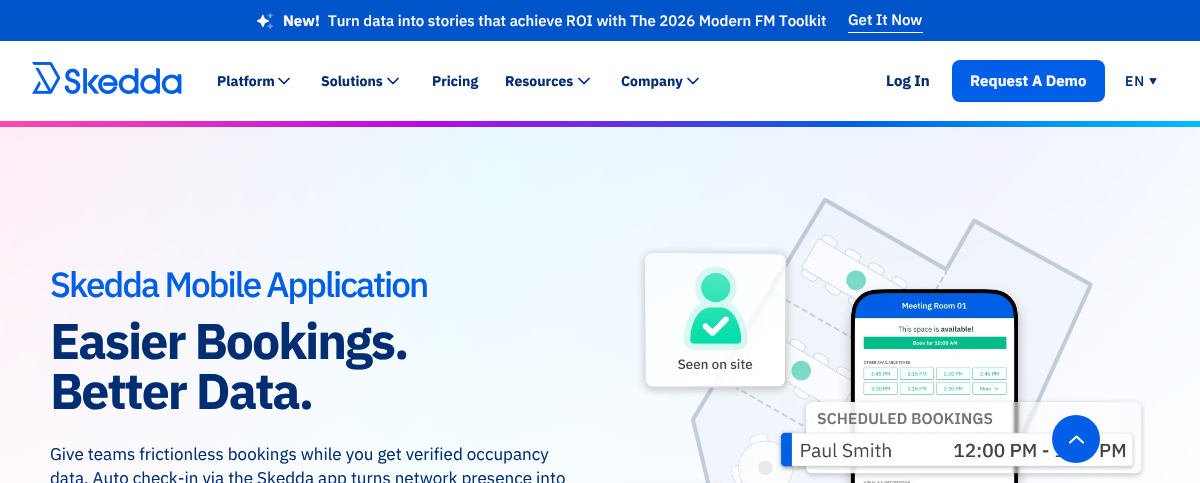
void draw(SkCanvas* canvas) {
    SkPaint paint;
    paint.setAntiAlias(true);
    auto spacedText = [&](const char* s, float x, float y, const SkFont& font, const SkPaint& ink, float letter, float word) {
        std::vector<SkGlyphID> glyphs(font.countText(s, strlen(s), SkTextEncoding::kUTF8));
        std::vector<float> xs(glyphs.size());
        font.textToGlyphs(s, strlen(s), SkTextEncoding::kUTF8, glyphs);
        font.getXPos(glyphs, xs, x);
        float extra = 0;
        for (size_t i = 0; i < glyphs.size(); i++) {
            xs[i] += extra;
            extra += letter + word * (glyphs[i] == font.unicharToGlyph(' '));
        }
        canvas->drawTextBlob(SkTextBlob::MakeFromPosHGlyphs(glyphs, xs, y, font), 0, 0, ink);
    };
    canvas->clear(0xFFFFFFFF);
    paint.setColor(0xFF0054CA);
    canvas->drawRect(SkRect::MakeXYWH(0, 0, 1200, 41), paint);
    canvas->drawImageRect(SkImages::DeferredFromEncodedData(SkData::MakeFromFileName("img1.png")), SkRect::MakeXYWH(257, 13, 16, 16), SkSamplingOptions());
    SkFont font1(fontMgr->matchFamilyStyle("IBM Plex Sans", SkFontStyle::Bold()), 15);
    font1.setSubpixel(true);
    paint.setColor(0xFFFFFFFF);
    canvas->drawString("New!", 283, 26, font1, paint);
    SkFont font2(fontMgr->matchFamilyStyle("IBM Plex Sans", SkFontStyle(500, SkFontStyle::kNormal_Width, SkFontStyle::kUpright_Slant)), 15);
    font2.setSubpixel(true);
    canvas->drawString("Turn data into stories that achieve ROI with The 2026 Modern FM Toolkit", 328, 26, font2, paint);
    canvas->drawRect(SkRect::MakeXYWH(848, 32, 75, 1), paint);
    canvas->drawString("Get It Now", 848, 25, font2, paint);
    canvas->drawImageRect(SkImages::DeferredFromEncodedData(SkData::MakeFromFileName("img2.png")), SkRect::MakeXYWH(32, 62, 150, 32), SkSamplingOptions());
    SkFont font3(fontMgr->matchFamilyStyle("IBM Plex Sans", SkFontStyle::Bold()), 14);
    font3.setSubpixel(true);
    paint.setColor(0xFF012E72);
    canvas->drawString("Platform", 217, 86, font3, paint);
    paint.setStyle(SkPaint::kStroke_Style);
    paint.setStrokeWidth(1.7f);
    paint.setStrokeCap(SkPaint::kRound_Cap);
    paint.setStrokeJoin(SkPaint::kRound_Join);
    canvas->drawPath(SkPathBuilder().moveTo(279, 78.5f).lineTo(284, 83.5f).lineTo(289, 78.5f).detach(), paint);
    paint.setStyle(SkPaint::kFill_Style);
    canvas->drawString("Solutions", 321, 86, font3, paint);
    paint.setStyle(SkPaint::kStroke_Style);
    canvas->drawPath(SkPathBuilder().moveTo(388, 78.5f).lineTo(393, 83.5f).lineTo(398, 78.5f).detach(), paint);
    paint.setStyle(SkPaint::kFill_Style);
    canvas->drawString("Pricing", 432, 86, font3, paint);
    canvas->drawString("Resources", 505, 86, font3, paint);
    paint.setStyle(SkPaint::kStroke_Style);
    canvas->drawPath(SkPathBuilder().moveTo(579, 78.5f).lineTo(584, 83.5f).lineTo(589, 78.5f).detach(), paint);
    paint.setStyle(SkPaint::kFill_Style);
    canvas->drawString("Company", 621, 86, font3, paint);
    paint.setStyle(SkPaint::kStroke_Style);
    canvas->drawPath(SkPathBuilder().moveTo(688, 78.5f).lineTo(693, 83.5f).lineTo(698, 78.5f).detach(), paint);
    paint.setStyle(SkPaint::kFill_Style);
    canvas->drawString("Log In", 886, 86, font1, paint);
    paint.setColor(0x0D101828);
    paint.setMaskFilter(SkMaskFilter::MakeBlur(kNormal_SkBlurStyle, 1));
    canvas->drawRoundRect(SkRect::MakeXYWH(952, 61, 153, 42), 8, 8, paint);
    paint.setMaskFilter(nullptr);
    paint.setColor(0xFF005FE6);
    canvas->drawRoundRect(SkRect::MakeXYWH(952, 60, 153, 42), 8, 8, paint);
    paint.setColor(0xFFFFFFFF);
    canvas->drawString("Request A Demo", 970, 86, font1, paint);
    SkFont font4(fontMgr->matchFamilyStyle("IBM Plex Sans", SkFontStyle(500, SkFontStyle::kNormal_Width, SkFontStyle::kUpright_Slant)), 14);
    font4.setSubpixel(true);
    paint.setColor(0xFF012E72);
    spacedText("EN", 1125, 86, font4, paint, 1, 0);
    canvas->drawImageRect(SkImages::DeferredFromEncodedData(SkData::MakeFromFileName("img3.png")), SkRect::MakeXYWH(1149, 78, 8, 7), SkSamplingOptions());
    {
        const SkColor colors[] = {0xFFFFBEE1, 0xFFAEEBFF, 0xFFCED3FF, 0xFFE8F9FF};
        const float stops[] = {0, 0.37f, 0.74f, 1};
        const SkPoint ends[] = {{-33, 244}, {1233, 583}};
        paint.setShader(SkGradientShader::MakeLinear(ends, colors, stops, 4, SkTileMode::kClamp));
        paint.setAlpha(255);
    }
    canvas->drawRect(SkRect::MakeXYWH(0, 127, 1200, 356), paint);
    {
        const SkColor colors[] = {0xB5FFFFFF, 0xFFFFFFFF};
        const float stops[] = {0, 1};
        const SkPoint ends[] = {{600, 121}, {600, 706}};
        paint.setShader(SkGradientShader::MakeLinear(ends, colors, stops, 2, SkTileMode::kClamp));
        paint.setAlpha(255);
    }
    canvas->drawRect(SkRect::MakeXYWH(0, 127, 1200, 356), paint);
    {
        const SkColor colors[] = {0xFFFF49AD, 0xFFBA0AE6, 0xFF005FE6, 0xFF00BFFF};
        const float stops[] = {0, 0.35f, 0.71f, 1};
        const SkPoint ends[] = {{0, 124}, {1200, 124}};
        paint.setShader(SkGradientShader::MakeLinear(ends, colors, stops, 4, SkTileMode::kClamp));
        paint.setAlpha(255);
    }
    canvas->drawRect(SkRect::MakeXYWH(0, 121, 1200, 6), paint);
    SkFont font5(fontMgr->matchFamilyStyle("IBM Plex Sans", SkFontStyle(500, SkFontStyle::kNormal_Width, SkFontStyle::kUpright_Slant)), 35);
    font5.setSubpixel(true);
    paint.setShader(nullptr);
    paint.setColor(0xFF005FE6);
    spacedText("Skedda Mobile Application", 50, 297, font5, paint, -2, 0);
    SkFont font6(fontMgr->matchFamilyStyle("IBM Plex Sans", SkFontStyle::Bold()), 50);
    font6.setSubpixel(true);
    paint.setColor(0xFF012E72);
    spacedText("Easier Bookings.", 50, 359, font6, paint, -2, 0);
    spacedText("Better Data.", 50, 409, font6, paint, -2, 0);
    SkFont font7(fontMgr->matchFamilyStyle("IBM Plex Sans", SkFontStyle::Normal()), 17);
    font7.setSubpixel(true);
    canvas->drawString("Give teams frictionless bookings while you get verified occupancy", 50, 460, font7, paint);
    canvas->drawString("data. Auto check-in via the Skedda app turns network presence into", 50, 484, font7, paint);
    canvas->drawImageRect(SkImages::DeferredFromEncodedData(SkData::MakeFromFileName("img4.png")), SkRect::MakeXYWH(624, 198, 521, 285), SkSamplingOptions());
    paint.setColor(0xFF005FE6);
    canvas->drawCircle(1076, 439, 24, paint);
    paint.setStyle(SkPaint::kStroke_Style);
    paint.setStrokeWidth(2.1f);
    paint.setColor(0xFFFFFFFF);
    canvas->drawPath(SkPathBuilder().moveTo(1083, 442.5f).lineTo(1076.5f, 436.5f).lineTo(1070, 442.5f).detach(), paint);
}
